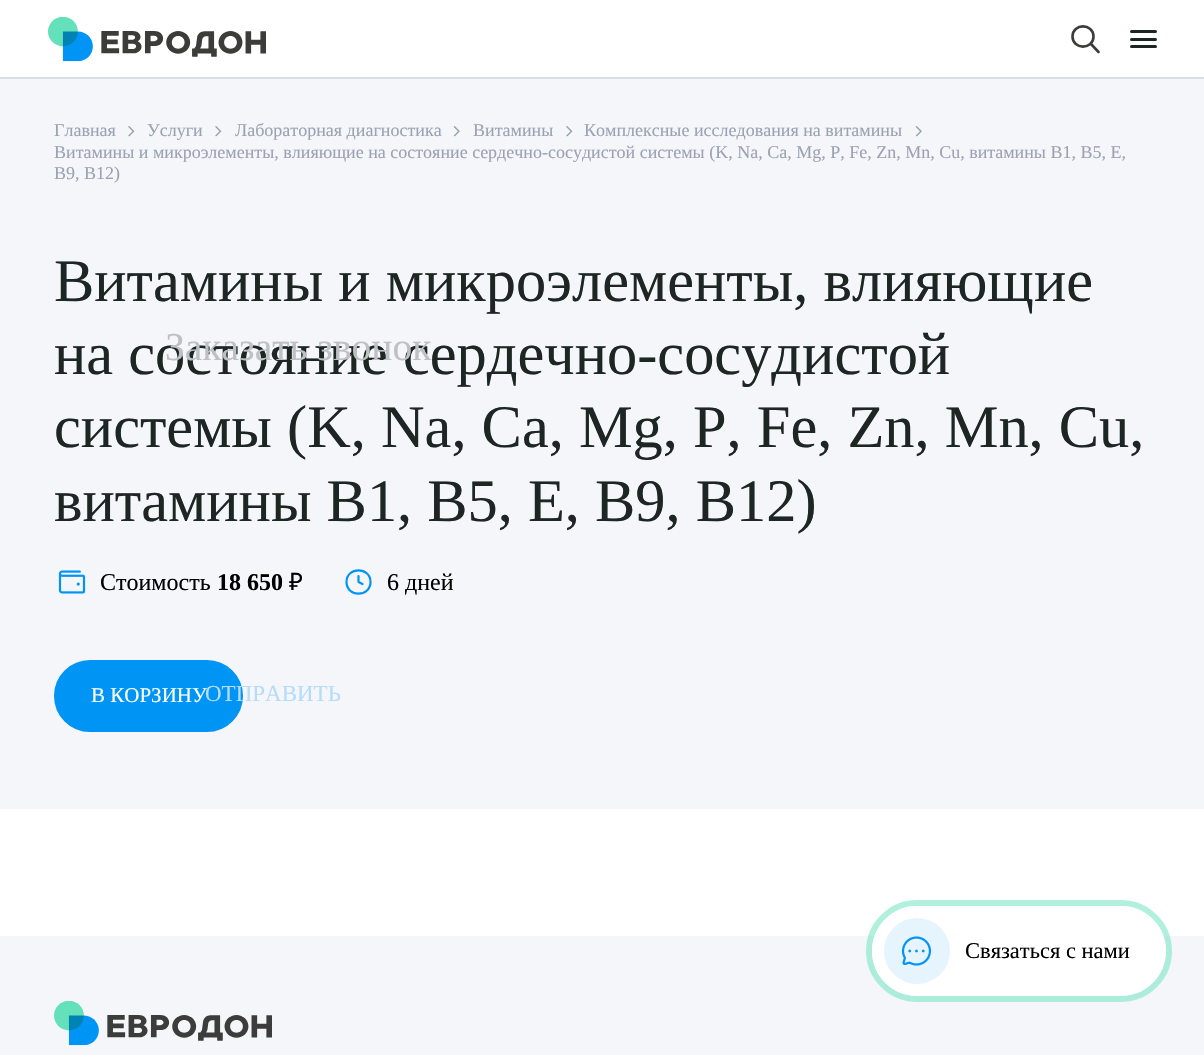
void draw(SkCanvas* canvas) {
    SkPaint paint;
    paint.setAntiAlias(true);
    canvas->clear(0xFFFFFFFF);
    paint.setColor(0xFFDBDEE5);
    canvas->drawRect(SkRect::MakeXYWH(0, 77, 1204, 2), paint);
    canvas->drawImageRect(SkImages::DeferredFromEncodedData(SkData::MakeFromFileName("img1.png")), SkRect::MakeXYWH(48, 16, 218, 46), SkSamplingOptions());
    paint.setStyle(SkPaint::kStroke_Style);
    paint.setStrokeWidth(2.6f);
    paint.setStrokeCap(SkPaint::kRound_Cap);
    paint.setStrokeJoin(SkPaint::kRound_Join);
    paint.setColor(0xFF3C3C3B);
    canvas->drawPath(SkPathBuilder().moveTo(1091, 44).lineTo(1098.5f, 52).moveTo(1093.5f, 36.5f).cubicTo(1093.5f, 50, 1072.5f, 50, 1072.5f, 36.5f).cubicTo(1072.5f, 23, 1093.5f, 23, 1093.5f, 36.5f).close().detach(), paint);
    paint.setStyle(SkPaint::kFill_Style);
    paint.setColor(0xFF1D2622);
    canvas->drawRoundRect(SkRect::MakeXYWH(1130, 30, 27, 3), 1.5f, 1.5f, paint);
    canvas->drawRoundRect(SkRect::MakeXYWH(1130, 38, 27, 3), 1.5f, 1.5f, paint);
    canvas->drawRoundRect(SkRect::MakeXYWH(1130, 45, 27, 3), 1.5f, 1.5f, paint);
    paint.setColor(0xFFF5F6FA);
    canvas->drawRect(SkRect::MakeXYWH(0, 79, 1204, 730), paint);
    SkFont font1(fontMgr->matchFamilyStyle("Liberation Serif", SkFontStyle::Normal()), 18);
    font1.setSubpixel(true);
    paint.setColor(0xFF9AA2B3);
    canvas->drawString("Главная", 54, 136, font1, paint);
    canvas->drawImageRect(SkImages::DeferredFromEncodedData(SkData::MakeFromFileName("img2.png")), SkRect::MakeXYWH(128, 126, 7, 11), SkSamplingOptions());
    canvas->drawString("Услуги", 147, 136, font1, paint);
    canvas->drawImageRect(SkImages::DeferredFromEncodedData(SkData::MakeFromFileName("img2.png")), SkRect::MakeXYWH(215, 126, 7, 11), SkSamplingOptions());
    canvas->drawString("Лабораторная диагностика", 235, 136, font1, paint);
    canvas->drawImageRect(SkImages::DeferredFromEncodedData(SkData::MakeFromFileName("img3.png")), SkRect::MakeXYWH(453, 126, 7, 11), SkSamplingOptions());
    canvas->drawString("Витамины", 473, 136, font1, paint);
    canvas->drawImageRect(SkImages::DeferredFromEncodedData(SkData::MakeFromFileName("img2.png")), SkRect::MakeXYWH(566, 126, 7, 11), SkSamplingOptions());
    canvas->drawString("Комплексные исследования на витамины", 584, 136, font1, paint);
    canvas->drawImageRect(SkImages::DeferredFromEncodedData(SkData::MakeFromFileName("img3.png")), SkRect::MakeXYWH(915, 126, 7, 11), SkSamplingOptions());
    canvas->drawString("Витамины и микроэлементы, влияющие на состояние сердечно-сосудистой системы (K, Na, Сa, Mg, P, Fe, Zn, Mn, Cu, витамины B1, B5, E,", 54, 158, font1, paint);
    canvas->drawString("B9, B12)", 54, 179, font1, paint);
    SkFont font2(fontMgr->matchFamilyStyle("Liberation Serif", SkFontStyle::Normal()), 60.4f);
    font2.setSubpixel(true);
    paint.setColor(0xFF1D2622);
    canvas->drawString("Витамины и микроэлементы, влияющие", 54, 301, font2, paint);
    canvas->drawString("на состояние сердечно-сосудистой", 54, 374, font2, paint);
    canvas->drawString("системы (K, Na, Сa, Mg, P, Fe, Zn, Mn, Cu,", 54, 447, font2, paint);
    canvas->drawString("витамины B1, B5, E, B9, B12)", 54, 521, font2, paint);
    canvas->drawImageRect(SkImages::DeferredFromEncodedData(SkData::MakeFromFileName("img4.png")), SkRect::MakeXYWH(58, 570, 28, 24), SkSamplingOptions());
    SkFont font3(fontMgr->matchFamilyStyle("Liberation Serif", SkFontStyle::Normal()), 24);
    font3.setSubpixel(true);
    paint.setColor(0xFF000000);
    canvas->drawString("Стоимость", 100, 590, font3, paint);
    SkFont font4(fontMgr->matchFamilyStyle("Liberation Serif", SkFontStyle::Bold()), 24);
    font4.setSubpixel(true);
    canvas->drawString("18 650", 217, 590, font4, paint);
    SkFont font5(fontMgr->matchFamilyStyle("Noto Sans", SkFontStyle::Normal()), 24);
    font5.setSubpixel(true);
    canvas->drawString("₽", 289, 590, font5, paint);
    paint.setStyle(SkPaint::kStroke_Style);
    paint.setStrokeWidth(2.2f);
    paint.setColor(0xFF0094F5);
    canvas->drawPath(SkPathBuilder().moveTo(358.5f, 576).lineTo(358.5f, 582).lineTo(362.5f, 584).moveTo(370.5f, 582).cubicTo(370.5f, 597.5f, 346.5f, 597.5f, 346.5f, 582).cubicTo(346.5f, 566.5f, 370.5f, 566.5f, 370.5f, 582).close().detach(), paint);
    paint.setStyle(SkPaint::kFill_Style);
    paint.setColor(0xFF000000);
    canvas->drawString("6 дней", 387, 590, font3, paint);
    paint.setColor(0xFF0094F5);
    canvas->drawRoundRect(SkRect::MakeXYWH(55, 661, 187, 70), 35, 35, paint);
    paint.setStyle(SkPaint::kStroke_Style);
    paint.setStrokeWidth(2);
    paint.setStrokeCap(SkPaint::kButt_Cap);
    paint.setStrokeJoin(SkPaint::kMiter_Join);
    canvas->drawRoundRect(SkRect::MakeXYWH(55, 661, 187, 70), 35, 35, paint);
    SkFont font6(fontMgr->matchFamilyStyle("Liberation Serif", SkFontStyle::Normal()), 21);
    font6.setSubpixel(true);
    paint.setStyle(SkPaint::kFill_Style);
    paint.setColor(0xFFFFFFFF);
    canvas->drawString("В КОРЗИНУ", 91, 702, font6, paint);
    paint.setColor(0xFFF5F6FA);
    canvas->drawRect(SkRect::MakeXYWH(0, 936, 1204, 119), paint);
    SkFont font7(fontMgr->matchFamilyStyle("Liberation Serif", SkFontStyle::Normal()), 39.5f);
    font7.setSubpixel(true);
    paint.setColor(0xFFBEC1C3);
    canvas->drawString("Заказать звонок", 165, 360, font7, paint);
    SkFont font8(fontMgr->matchFamilyStyle("Liberation Serif", SkFontStyle::Normal()), 23);
    font8.setSubpixel(true);
    paint.setColor(0xFFB5DCF9);
    canvas->drawString("ОТПРАВИТЬ", 205, 701, font8, paint);
    paint.setStyle(SkPaint::kStroke_Style);
    paint.setStrokeWidth(6);
    paint.setColor(0x8064E1BA);
    canvas->drawRoundRect(SkRect::MakeXYWH(869, 903, 300, 96), 48, 48, paint);
    paint.setStyle(SkPaint::kFill_Style);
    paint.setColor(0xFFFFFFFF);
    canvas->drawRoundRect(SkRect::MakeXYWH(872, 906, 294, 90), 45, 45, paint);
    paint.setColor(0xFFE6F4FE);
    canvas->drawCircle(917, 951, 33, paint);
    canvas->drawImageRect(SkImages::DeferredFromEncodedData(SkData::MakeFromFileName("img5.png")), SkRect::MakeXYWH(901, 936, 31, 30), SkSamplingOptions());
    SkFont font9(fontMgr->matchFamilyStyle("Liberation Serif", SkFontStyle::Normal()), 22.5f);
    font9.setSubpixel(true);
    paint.setColor(0xFF000000);
    canvas->drawString("Связаться с нами", 965, 958, font9, paint);
    canvas->drawImageRect(SkImages::DeferredFromEncodedData(SkData::MakeFromFileName("img6.png")), SkRect::MakeXYWH(54, 1000, 218, 46), SkSamplingOptions());
}
